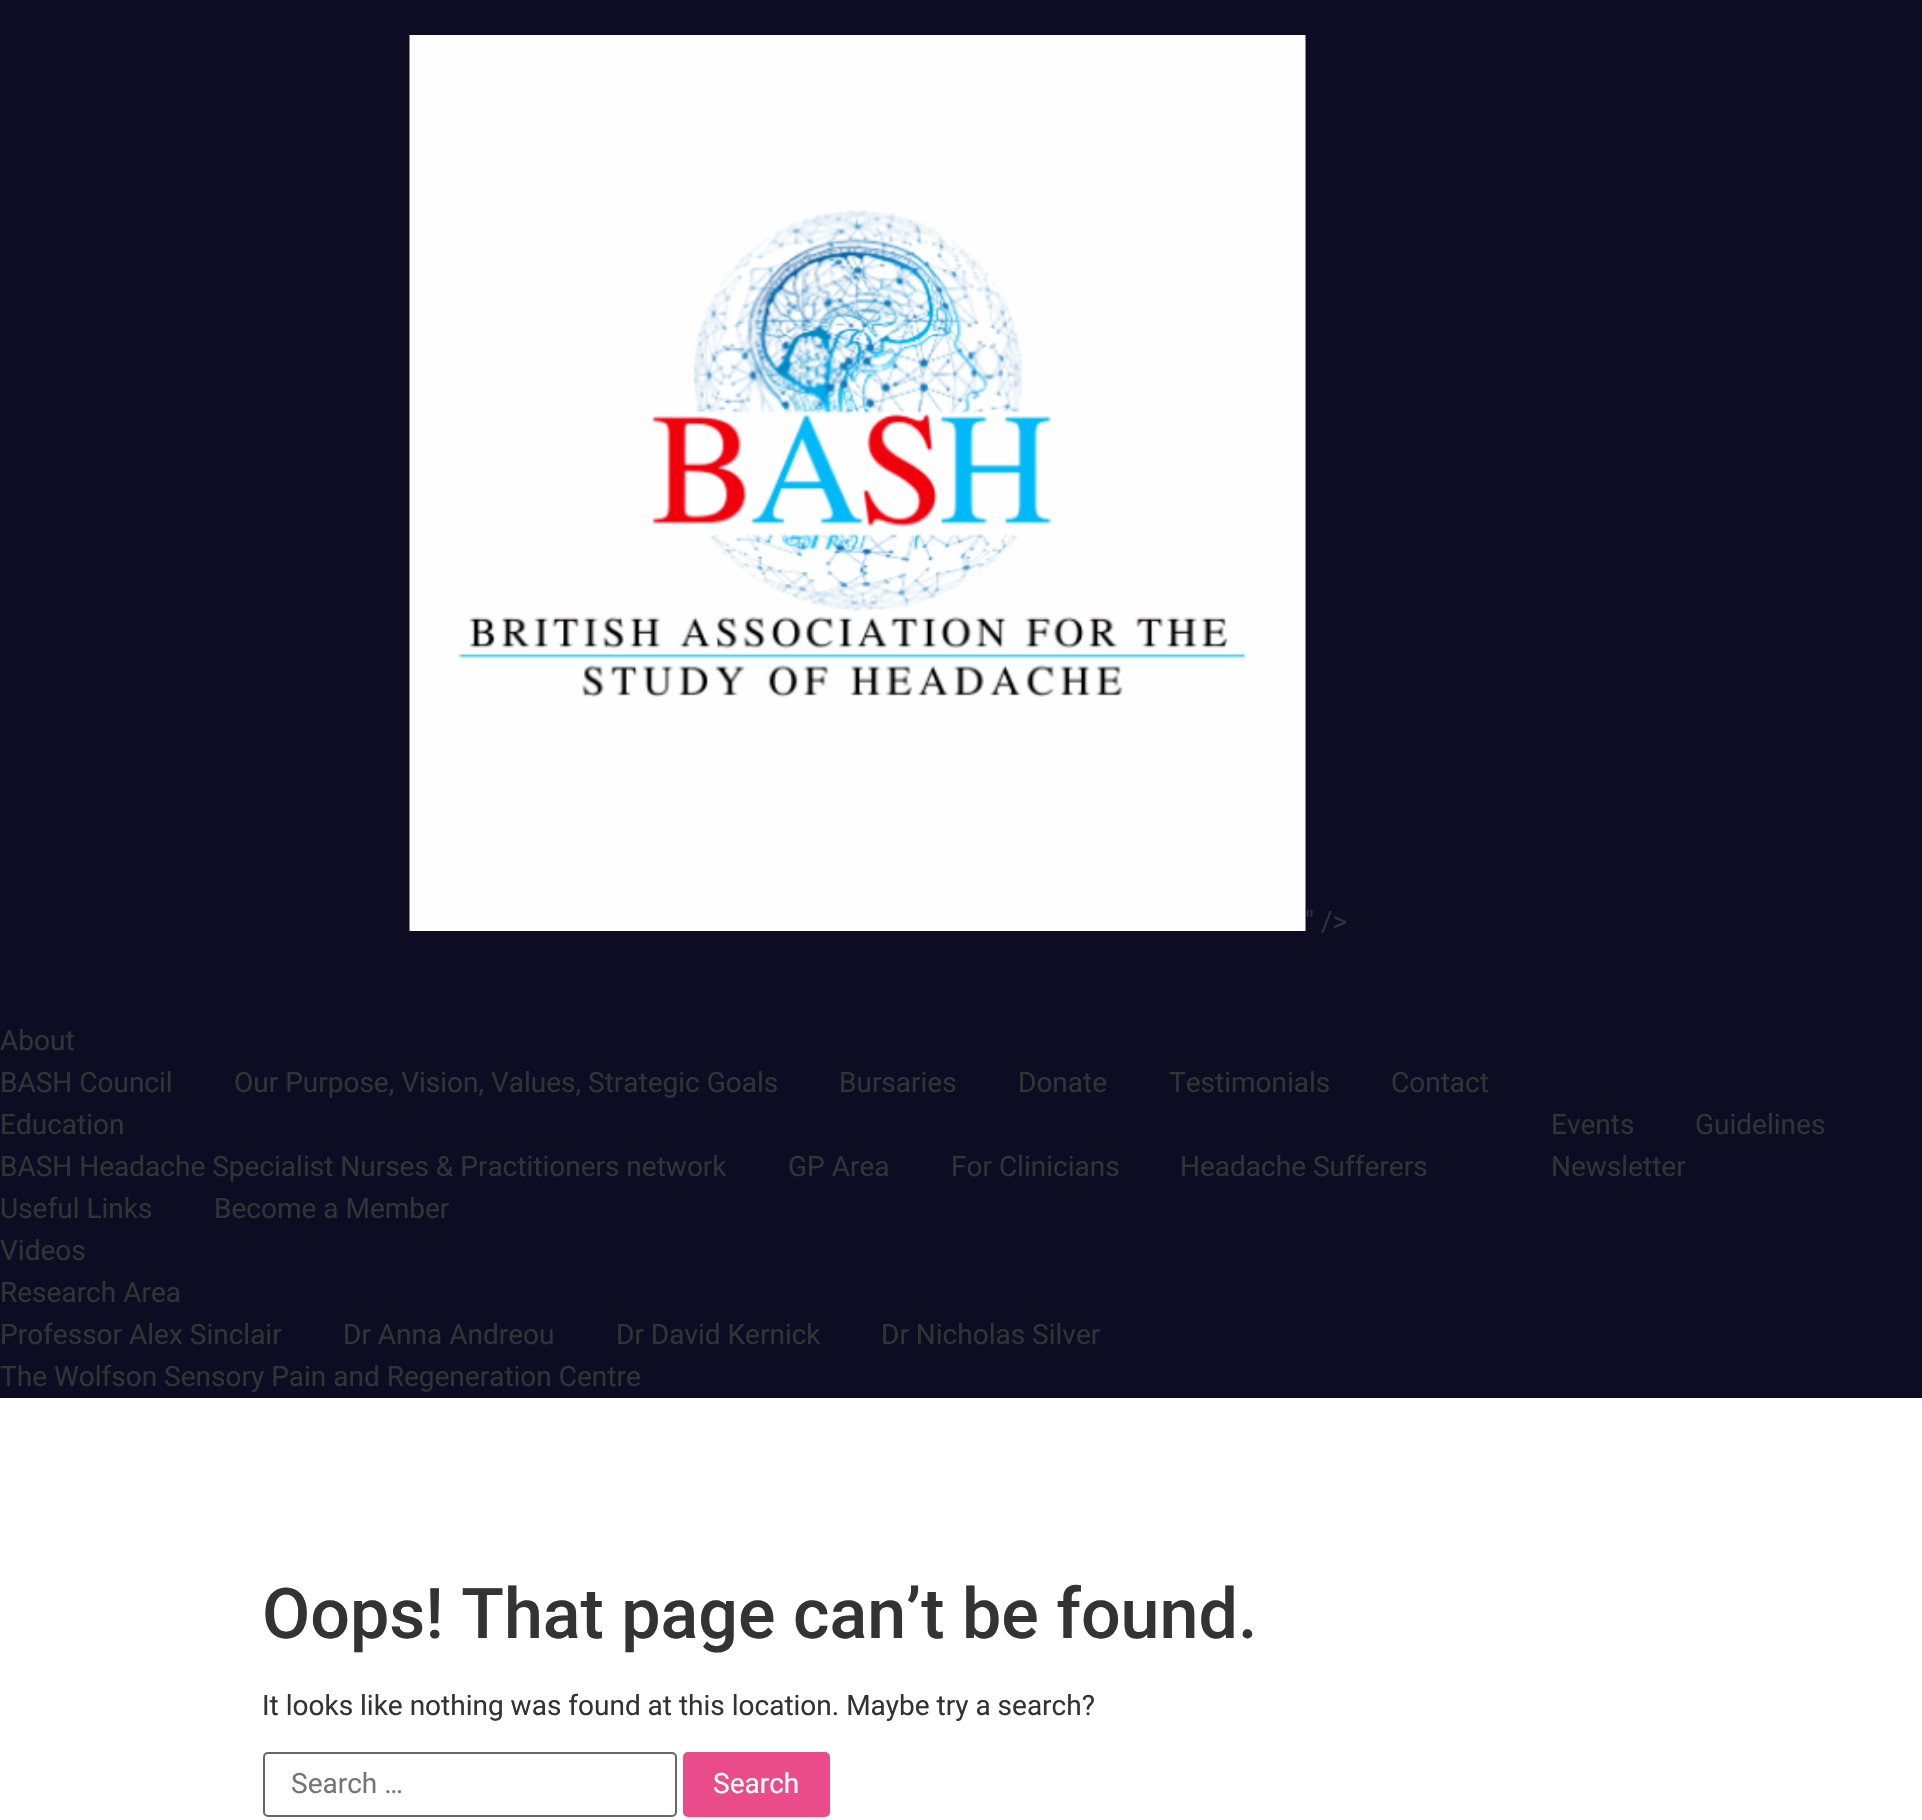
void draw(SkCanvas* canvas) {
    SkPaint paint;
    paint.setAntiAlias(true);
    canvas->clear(0xFFFFFFFF);
    paint.setColor(0xFF0D0C22);
    canvas->drawRect(SkRect::MakeXYWH(0, 0, 1922, 1398), paint);
    canvas->drawImageRect(SkImages::DeferredFromEncodedData(SkData::MakeFromFileName("img1.png")), SkRect::MakeXYWH(409, 35, 897, 896), SkSamplingOptions());
    SkFont font1(fontMgr->matchFamilyStyle("Roboto", SkFontStyle::Normal()), 28);
    font1.setSubpixel(true);
    paint.setColor(0xFF333333);
    canvas->drawString("\" />", 1305, 931, font1, paint);
    canvas->drawString("About", 0, 1050, font1, paint);
    canvas->drawString("BASH Council", 0, 1092, font1, paint);
    canvas->drawString("Our Purpose, Vision, Values, Strategic Goals", 234, 1092, font1, paint);
    canvas->drawString("Bursaries", 839, 1092, font1, paint);
    canvas->drawString("Donate", 1018, 1092, font1, paint);
    canvas->drawString("Testimonials", 1169, 1092, font1, paint);
    canvas->drawString("Contact", 1391, 1092, font1, paint);
    canvas->drawString("Education", 0, 1134, font1, paint);
    canvas->drawString("BASH Headache Specialist Nurses & Practitioners network", 0, 1176, font1, paint);
    canvas->drawString("GP Area", 788, 1176, font1, paint);
    canvas->drawString("For Clinicians", 951, 1176, font1, paint);
    canvas->drawString("Headache Sufferers", 1180, 1176, font1, paint);
    canvas->drawString("Events", 1551, 1134, font1, paint);
    canvas->drawString("Guidelines", 1695, 1134, font1, paint);
    canvas->drawString("Newsletter", 1551, 1176, font1, paint);
    canvas->drawString("Useful Links", 0, 1218, font1, paint);
    canvas->drawString("Videos", 0, 1260, font1, paint);
    canvas->drawString("Become a Member", 214, 1218, font1, paint);
    canvas->drawString("Research Area", 0, 1302, font1, paint);
    canvas->drawString("Professor Alex Sinclair", 0, 1344, font1, paint);
    canvas->drawString("Dr Anna Andreou", 343, 1344, font1, paint);
    canvas->drawString("Dr David Kernick", 616, 1344, font1, paint);
    canvas->drawString("Dr Nicholas Silver", 881, 1344, font1, paint);
    canvas->drawString("The Wolfson Sensory Pain and Regeneration Centre", 0, 1386, font1, paint);
    SkFont font2(fontMgr->matchFamilyStyle("Roboto", SkFontStyle(500, SkFontStyle::kNormal_Width, SkFontStyle::kUpright_Slant)), 70);
    font2.setSubpixel(true);
    canvas->drawString("Oops! That page can’t be found.", 262, 1638, font2, paint);
    canvas->drawString("It looks like nothing was found at this location. Maybe try a search?", 262, 1715, font1, paint);
    paint.setStyle(SkPaint::kStroke_Style);
    paint.setStrokeWidth(2);
    paint.setColor(0xFF666666);
    canvas->drawRoundRect(SkRect::MakeXYWH(264, 1753, 412, 63), 4, 4, paint);
    paint.setStyle(SkPaint::kFill_Style);
    paint.setColor(0xFF757575);
    canvas->drawString("Search …", 291, 1793, font1, paint);
    paint.setColor(0xFFEA4C89);
    canvas->drawRoundRect(SkRect::MakeXYWH(684, 1753, 145, 63), 4, 4, paint);
    paint.setStyle(SkPaint::kStroke_Style);
    canvas->drawRoundRect(SkRect::MakeXYWH(684, 1753, 145, 63), 4, 4, paint);
    paint.setStyle(SkPaint::kFill_Style);
    paint.setColor(0xFFFFFFFF);
    canvas->drawString("Search", 713, 1793, font1, paint);
}
